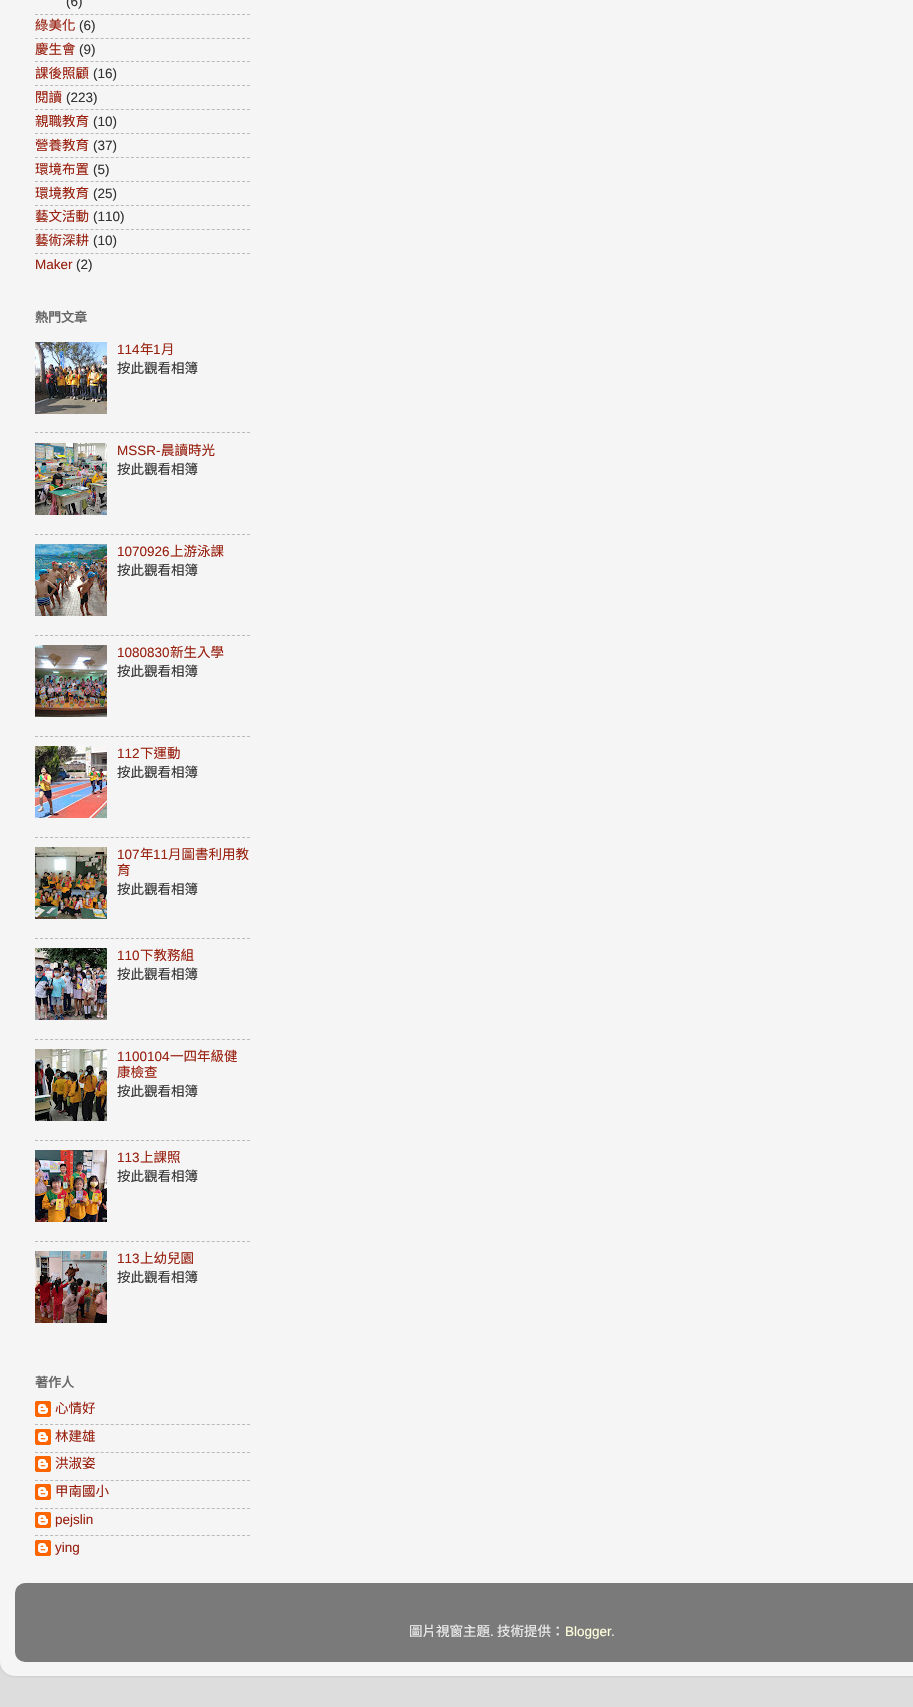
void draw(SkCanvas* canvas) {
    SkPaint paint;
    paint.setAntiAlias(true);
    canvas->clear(0xFFDDDDDD);
    canvas->save();
    canvas->clipPath(SkPathBuilder(SkPathFillType::kEvenOdd).moveTo(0, 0).lineTo(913, 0).lineTo(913, 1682).lineTo(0, 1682).close().moveTo(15, -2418).lineTo(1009, -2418).cubicTo(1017.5f, -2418, 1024, -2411.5f, 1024, -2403).lineTo(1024, 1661).cubicTo(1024, 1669.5f, 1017.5f, 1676, 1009, 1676).lineTo(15, 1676).cubicTo(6.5f, 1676, 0, 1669.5f, 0, 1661).lineTo(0, -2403).cubicTo(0, -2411.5f, 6.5f, -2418, 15, -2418).close().detach(), true);
    paint.setColor(0x26000000);
    paint.setMaskFilter(SkMaskFilter::MakeBlur(kNormal_SkBlurStyle, 1.5f));
    canvas->drawRoundRect(SkRect::MakeXYWH(0, -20, 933, 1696), 15, 15, paint);
    paint.setMaskFilter(nullptr);
    canvas->restore();
    canvas->drawImageRect(SkImages::DeferredFromEncodedData(SkData::MakeFromFileName("img1.png")), SkRect::MakeXYWH(0, 0, 913, 1676), SkSamplingOptions());
    SkFont font1(fontMgr->matchFamilyStyle("Liberation Sans", SkFontStyle::Normal()), 13.5f);
    font1.setSubpixel(true);
    paint.setColor(0xFF333333);
    canvas->drawString("(6)", 66, 6, font1, paint);
    paint.setStyle(SkPaint::kStroke_Style);
    paint.setStrokeWidth(1);
    paint.setColor(0xFFBABABA);
    paint.setPathEffect(SkDashPathEffect::Make({{3, 2.05f}}, 0));
    canvas->drawPath(SkPathBuilder().moveTo(35, 14.5f).lineTo(250, 14.5f).detach(), paint);
    paint.setPathEffect(nullptr);
    SkFont font2(fontMgr->matchFamilyStyle("Noto Sans CJK TC", SkFontStyle::Normal()), 13.5f);
    font2.setSubpixel(true);
    paint.setStyle(SkPaint::kFill_Style);
    paint.setColor(0xFF992211);
    canvas->drawString("綠美化", 35, 30, font2, paint);
    paint.setColor(0xFF333333);
    canvas->drawString("(6)", 79, 30, font1, paint);
    paint.setStyle(SkPaint::kStroke_Style);
    paint.setColor(0xFFBABABA);
    paint.setPathEffect(SkDashPathEffect::Make({{3, 2.05f}}, 0));
    canvas->drawPath(SkPathBuilder().moveTo(35, 38.5f).lineTo(250, 38.5f).detach(), paint);
    paint.setPathEffect(nullptr);
    paint.setStyle(SkPaint::kFill_Style);
    paint.setColor(0xFF992211);
    canvas->drawString("慶生會", 35, 54, font2, paint);
    paint.setColor(0xFF333333);
    canvas->drawString("(9)", 79, 54, font1, paint);
    paint.setStyle(SkPaint::kStroke_Style);
    paint.setColor(0xFFBABABA);
    paint.setPathEffect(SkDashPathEffect::Make({{3, 2.05f}}, 0));
    canvas->drawPath(SkPathBuilder().moveTo(35, 61.5f).lineTo(250, 61.5f).detach(), paint);
    paint.setPathEffect(nullptr);
    paint.setStyle(SkPaint::kFill_Style);
    paint.setColor(0xFF992211);
    canvas->drawString("課後照顧", 35, 78, font2, paint);
    paint.setColor(0xFF333333);
    canvas->drawString("(16)", 93, 78, font1, paint);
    paint.setStyle(SkPaint::kStroke_Style);
    paint.setColor(0xFFBABABA);
    paint.setPathEffect(SkDashPathEffect::Make({{3, 2.05f}}, 0));
    canvas->drawPath(SkPathBuilder().moveTo(35, 85.5f).lineTo(250, 85.5f).detach(), paint);
    paint.setPathEffect(nullptr);
    paint.setStyle(SkPaint::kFill_Style);
    paint.setColor(0xFF992211);
    canvas->drawString("閱讀", 35, 102, font2, paint);
    paint.setColor(0xFF333333);
    canvas->drawString("(223)", 66, 102, font1, paint);
    paint.setStyle(SkPaint::kStroke_Style);
    paint.setColor(0xFFBABABA);
    paint.setPathEffect(SkDashPathEffect::Make({{3, 2.05f}}, 0));
    canvas->drawPath(SkPathBuilder().moveTo(35, 109.5f).lineTo(250, 109.5f).detach(), paint);
    paint.setPathEffect(nullptr);
    paint.setStyle(SkPaint::kFill_Style);
    paint.setColor(0xFF992211);
    canvas->drawString("親職教育", 35, 126, font2, paint);
    paint.setColor(0xFF333333);
    canvas->drawString("(10)", 93, 126, font1, paint);
    paint.setStyle(SkPaint::kStroke_Style);
    paint.setColor(0xFFBABABA);
    paint.setPathEffect(SkDashPathEffect::Make({{3, 2.05f}}, 0));
    canvas->drawPath(SkPathBuilder().moveTo(35, 133.5f).lineTo(250, 133.5f).detach(), paint);
    paint.setPathEffect(nullptr);
    paint.setStyle(SkPaint::kFill_Style);
    paint.setColor(0xFF992211);
    canvas->drawString("營養教育", 35, 150, font2, paint);
    paint.setColor(0xFF333333);
    canvas->drawString("(37)", 93, 150, font1, paint);
    paint.setStyle(SkPaint::kStroke_Style);
    paint.setColor(0xFFBABABA);
    paint.setPathEffect(SkDashPathEffect::Make({{3, 2.05f}}, 0));
    canvas->drawPath(SkPathBuilder().moveTo(35, 157.5f).lineTo(250, 157.5f).detach(), paint);
    paint.setPathEffect(nullptr);
    paint.setStyle(SkPaint::kFill_Style);
    paint.setColor(0xFF992211);
    canvas->drawString("環境布置", 35, 174, font2, paint);
    paint.setColor(0xFF333333);
    canvas->drawString("(5)", 93, 174, font1, paint);
    paint.setStyle(SkPaint::kStroke_Style);
    paint.setColor(0xFFBABABA);
    paint.setPathEffect(SkDashPathEffect::Make({{3, 2.05f}}, 0));
    canvas->drawPath(SkPathBuilder().moveTo(35, 181.5f).lineTo(250, 181.5f).detach(), paint);
    paint.setPathEffect(nullptr);
    paint.setStyle(SkPaint::kFill_Style);
    paint.setColor(0xFF992211);
    canvas->drawString("環境教育", 35, 198, font2, paint);
    paint.setColor(0xFF333333);
    canvas->drawString("(25)", 93, 198, font1, paint);
    paint.setStyle(SkPaint::kStroke_Style);
    paint.setColor(0xFFBABABA);
    paint.setPathEffect(SkDashPathEffect::Make({{3, 2.05f}}, 0));
    canvas->drawPath(SkPathBuilder().moveTo(35, 205.5f).lineTo(250, 205.5f).detach(), paint);
    paint.setPathEffect(nullptr);
    paint.setStyle(SkPaint::kFill_Style);
    paint.setColor(0xFF992211);
    canvas->drawString("藝文活動", 35, 221, font2, paint);
    paint.setColor(0xFF333333);
    canvas->drawString("(110)", 93, 221, font1, paint);
    paint.setStyle(SkPaint::kStroke_Style);
    paint.setColor(0xFFBABABA);
    paint.setPathEffect(SkDashPathEffect::Make({{3, 2.05f}}, 0));
    canvas->drawPath(SkPathBuilder().moveTo(35, 229.5f).lineTo(250, 229.5f).detach(), paint);
    paint.setPathEffect(nullptr);
    paint.setStyle(SkPaint::kFill_Style);
    paint.setColor(0xFF992211);
    canvas->drawString("藝術深耕", 35, 245, font2, paint);
    paint.setColor(0xFF333333);
    canvas->drawString("(10)", 93, 245, font1, paint);
    paint.setStyle(SkPaint::kStroke_Style);
    paint.setColor(0xFFBABABA);
    paint.setPathEffect(SkDashPathEffect::Make({{3, 2.05f}}, 0));
    canvas->drawPath(SkPathBuilder().moveTo(35, 253.5f).lineTo(250, 253.5f).detach(), paint);
    paint.setPathEffect(nullptr);
    paint.setStyle(SkPaint::kFill_Style);
    paint.setColor(0xFF992211);
    canvas->drawString("Maker", 35, 269, font1, paint);
    paint.setColor(0xFF333333);
    canvas->drawString("(2)", 76, 269, font1, paint);
    SkFont font3(fontMgr->matchFamilyStyle("Noto Sans CJK TC", SkFontStyle::Bold()), 13);
    font3.setSubpixel(true);
    paint.setColor(0xFF666666);
    canvas->drawString("熱門文章", 35, 322, font3, paint);
    canvas->drawImageRect(SkImages::DeferredFromEncodedData(SkData::MakeFromFileName("img2.png")), SkRect::MakeXYWH(35, 342, 72, 72), SkSamplingOptions());
    paint.setColor(0xFF992211);
    canvas->drawString("114", 117, 354, font1, paint);
    canvas->drawString("年", 140, 354, font2, paint);
    canvas->drawString("1", 153, 354, font1, paint);
    canvas->drawString("月", 161, 354, font2, paint);
    paint.setColor(0xFF333333);
    canvas->drawString("按此觀看相簿", 117, 373, font2, paint);
    paint.setStyle(SkPaint::kStroke_Style);
    paint.setColor(0xFFBABABA);
    paint.setPathEffect(SkDashPathEffect::Make({{3, 2.05f}}, 0));
    canvas->drawPath(SkPathBuilder().moveTo(35, 432.5f).lineTo(250, 432.5f).detach(), paint);
    paint.setPathEffect(nullptr);
    canvas->drawImageRect(SkImages::DeferredFromEncodedData(SkData::MakeFromFileName("img3.png")), SkRect::MakeXYWH(35, 443, 72, 72), SkSamplingOptions());
    paint.setStyle(SkPaint::kFill_Style);
    paint.setColor(0xFF992211);
    canvas->drawString("MSSR-", 117, 455, font1, paint);
    canvas->drawString("晨讀時光", 161, 455, font2, paint);
    paint.setColor(0xFF333333);
    canvas->drawString("按此觀看相簿", 117, 474, font2, paint);
    paint.setStyle(SkPaint::kStroke_Style);
    paint.setColor(0xFFBABABA);
    paint.setPathEffect(SkDashPathEffect::Make({{3, 2.05f}}, 0));
    canvas->drawPath(SkPathBuilder().moveTo(35, 534.5f).lineTo(250, 534.5f).detach(), paint);
    paint.setPathEffect(nullptr);
    canvas->drawImageRect(SkImages::DeferredFromEncodedData(SkData::MakeFromFileName("img4.png")), SkRect::MakeXYWH(35, 544, 72, 72), SkSamplingOptions());
    paint.setStyle(SkPaint::kFill_Style);
    paint.setColor(0xFF992211);
    canvas->drawString("1070926", 117, 556, font1, paint);
    canvas->drawString("上游泳課", 170, 556, font2, paint);
    paint.setColor(0xFF333333);
    canvas->drawString("按此觀看相簿", 117, 575, font2, paint);
    paint.setStyle(SkPaint::kStroke_Style);
    paint.setColor(0xFFBABABA);
    paint.setPathEffect(SkDashPathEffect::Make({{3, 2.05f}}, 0));
    canvas->drawPath(SkPathBuilder().moveTo(35, 635.5f).lineTo(250, 635.5f).detach(), paint);
    paint.setPathEffect(nullptr);
    canvas->drawImageRect(SkImages::DeferredFromEncodedData(SkData::MakeFromFileName("img5.png")), SkRect::MakeXYWH(35, 645, 72, 72), SkSamplingOptions());
    paint.setStyle(SkPaint::kFill_Style);
    paint.setColor(0xFF992211);
    canvas->drawString("1080830", 117, 657, font1, paint);
    canvas->drawString("新生入學", 170, 657, font2, paint);
    paint.setColor(0xFF333333);
    canvas->drawString("按此觀看相簿", 117, 676, font2, paint);
    paint.setStyle(SkPaint::kStroke_Style);
    paint.setColor(0xFFBABABA);
    paint.setPathEffect(SkDashPathEffect::Make({{3, 2.05f}}, 0));
    canvas->drawPath(SkPathBuilder().moveTo(35, 736.5f).lineTo(250, 736.5f).detach(), paint);
    paint.setPathEffect(nullptr);
    canvas->drawImageRect(SkImages::DeferredFromEncodedData(SkData::MakeFromFileName("img6.png")), SkRect::MakeXYWH(35, 746, 72, 72), SkSamplingOptions());
    paint.setStyle(SkPaint::kFill_Style);
    paint.setColor(0xFF992211);
    canvas->drawString("112", 117, 758, font1, paint);
    canvas->drawString("下運動", 140, 758, font2, paint);
    paint.setColor(0xFF333333);
    canvas->drawString("按此觀看相簿", 117, 777, font2, paint);
    paint.setStyle(SkPaint::kStroke_Style);
    paint.setColor(0xFFBABABA);
    paint.setPathEffect(SkDashPathEffect::Make({{3, 2.05f}}, 0));
    canvas->drawPath(SkPathBuilder().moveTo(35, 837.5f).lineTo(250, 837.5f).detach(), paint);
    paint.setPathEffect(nullptr);
    canvas->drawImageRect(SkImages::DeferredFromEncodedData(SkData::MakeFromFileName("img7.png")), SkRect::MakeXYWH(35, 847, 72, 72), SkSamplingOptions());
    paint.setStyle(SkPaint::kFill_Style);
    paint.setColor(0xFF992211);
    canvas->drawString("107", 117, 859, font1, paint);
    canvas->drawString("年", 140, 859, font2, paint);
    canvas->drawString("11", 153, 859, font1, paint);
    canvas->drawString("月圖書利用教", 168, 859, font2, paint);
    canvas->drawString("育", 117, 875, font2, paint);
    paint.setColor(0xFF333333);
    canvas->drawString("按此觀看相簿", 117, 894, font2, paint);
    paint.setStyle(SkPaint::kStroke_Style);
    paint.setColor(0xFFBABABA);
    paint.setPathEffect(SkDashPathEffect::Make({{3, 2.05f}}, 0));
    canvas->drawPath(SkPathBuilder().moveTo(35, 938.5f).lineTo(250, 938.5f).detach(), paint);
    paint.setPathEffect(nullptr);
    canvas->drawImageRect(SkImages::DeferredFromEncodedData(SkData::MakeFromFileName("img8.png")), SkRect::MakeXYWH(35, 948, 72, 72), SkSamplingOptions());
    paint.setStyle(SkPaint::kFill_Style);
    paint.setColor(0xFF992211);
    canvas->drawString("110", 117, 960, font1, paint);
    canvas->drawString("下教務組", 140, 960, font2, paint);
    paint.setColor(0xFF333333);
    canvas->drawString("按此觀看相簿", 117, 979, font2, paint);
    paint.setStyle(SkPaint::kStroke_Style);
    paint.setColor(0xFFBABABA);
    paint.setPathEffect(SkDashPathEffect::Make({{3, 2.05f}}, 0));
    canvas->drawPath(SkPathBuilder().moveTo(35, 1039.5f).lineTo(250, 1039.5f).detach(), paint);
    paint.setPathEffect(nullptr);
    canvas->drawImageRect(SkImages::DeferredFromEncodedData(SkData::MakeFromFileName("img9.png")), SkRect::MakeXYWH(35, 1049, 72, 72), SkSamplingOptions());
    paint.setStyle(SkPaint::kFill_Style);
    paint.setColor(0xFF992211);
    canvas->drawString("1100104", 117, 1061, font1, paint);
    canvas->drawString("一四年級健", 170, 1061, font2, paint);
    canvas->drawString("康檢查", 117, 1077, font2, paint);
    paint.setColor(0xFF333333);
    canvas->drawString("按此觀看相簿", 117, 1096, font2, paint);
    paint.setStyle(SkPaint::kStroke_Style);
    paint.setColor(0xFFBABABA);
    paint.setPathEffect(SkDashPathEffect::Make({{3, 2.05f}}, 0));
    canvas->drawPath(SkPathBuilder().moveTo(35, 1140.5f).lineTo(250, 1140.5f).detach(), paint);
    paint.setPathEffect(nullptr);
    canvas->drawImageRect(SkImages::DeferredFromEncodedData(SkData::MakeFromFileName("img10.png")), SkRect::MakeXYWH(35, 1150, 72, 72), SkSamplingOptions());
    paint.setStyle(SkPaint::kFill_Style);
    paint.setColor(0xFF992211);
    canvas->drawString("113", 117, 1162, font1, paint);
    canvas->drawString("上課照", 140, 1162, font2, paint);
    paint.setColor(0xFF333333);
    canvas->drawString("按此觀看相簿", 117, 1181, font2, paint);
    paint.setStyle(SkPaint::kStroke_Style);
    paint.setColor(0xFFBABABA);
    paint.setPathEffect(SkDashPathEffect::Make({{3, 2.05f}}, 0));
    canvas->drawPath(SkPathBuilder().moveTo(35, 1241.5f).lineTo(250, 1241.5f).detach(), paint);
    paint.setPathEffect(nullptr);
    canvas->drawImageRect(SkImages::DeferredFromEncodedData(SkData::MakeFromFileName("img11.png")), SkRect::MakeXYWH(35, 1251, 72, 72), SkSamplingOptions());
    paint.setStyle(SkPaint::kFill_Style);
    paint.setColor(0xFF992211);
    canvas->drawString("113", 117, 1263, font1, paint);
    canvas->drawString("上幼兒園", 140, 1263, font2, paint);
    paint.setColor(0xFF333333);
    canvas->drawString("按此觀看相簿", 117, 1282, font2, paint);
    paint.setColor(0xFF666666);
    canvas->drawString("著作人", 35, 1387, font3, paint);
    canvas->drawImageRect(SkImages::DeferredFromEncodedData(SkData::MakeFromFileName("img12.png")), SkRect::MakeXYWH(35, 1401, 16, 16), SkSamplingOptions());
    paint.setColor(0xFF992211);
    canvas->drawString("心情好", 55, 1413, font2, paint);
    paint.setStyle(SkPaint::kStroke_Style);
    paint.setColor(0xFFBABABA);
    paint.setPathEffect(SkDashPathEffect::Make({{3, 2.05f}}, 0));
    canvas->drawPath(SkPathBuilder().moveTo(35, 1424.5f).lineTo(250, 1424.5f).detach(), paint);
    paint.setPathEffect(nullptr);
    canvas->drawImageRect(SkImages::DeferredFromEncodedData(SkData::MakeFromFileName("img12.png")), SkRect::MakeXYWH(35, 1429, 16, 16), SkSamplingOptions());
    paint.setStyle(SkPaint::kFill_Style);
    paint.setColor(0xFF992211);
    canvas->drawString("林建雄", 55, 1441, font2, paint);
    paint.setStyle(SkPaint::kStroke_Style);
    paint.setColor(0xFFBABABA);
    paint.setPathEffect(SkDashPathEffect::Make({{3, 2.05f}}, 0));
    canvas->drawPath(SkPathBuilder().moveTo(35, 1452.5f).lineTo(250, 1452.5f).detach(), paint);
    paint.setPathEffect(nullptr);
    canvas->drawImageRect(SkImages::DeferredFromEncodedData(SkData::MakeFromFileName("img12.png")), SkRect::MakeXYWH(35, 1456, 16, 16), SkSamplingOptions());
    paint.setStyle(SkPaint::kFill_Style);
    paint.setColor(0xFF992211);
    canvas->drawString("洪淑姿", 55, 1468, font2, paint);
    paint.setStyle(SkPaint::kStroke_Style);
    paint.setColor(0xFFBABABA);
    paint.setPathEffect(SkDashPathEffect::Make({{3, 2.05f}}, 0));
    canvas->drawPath(SkPathBuilder().moveTo(35, 1480.5f).lineTo(250, 1480.5f).detach(), paint);
    paint.setPathEffect(nullptr);
    canvas->drawImageRect(SkImages::DeferredFromEncodedData(SkData::MakeFromFileName("img12.png")), SkRect::MakeXYWH(35, 1484, 16, 16), SkSamplingOptions());
    paint.setStyle(SkPaint::kFill_Style);
    paint.setColor(0xFF992211);
    canvas->drawString("甲南國小", 55, 1496, font2, paint);
    paint.setStyle(SkPaint::kStroke_Style);
    paint.setColor(0xFFBABABA);
    paint.setPathEffect(SkDashPathEffect::Make({{3, 2.05f}}, 0));
    canvas->drawPath(SkPathBuilder().moveTo(35, 1508.5f).lineTo(250, 1508.5f).detach(), paint);
    paint.setPathEffect(nullptr);
    canvas->drawImageRect(SkImages::DeferredFromEncodedData(SkData::MakeFromFileName("img12.png")), SkRect::MakeXYWH(35, 1512, 16, 16), SkSamplingOptions());
    paint.setStyle(SkPaint::kFill_Style);
    paint.setColor(0xFF992211);
    canvas->drawString("pejslin", 55, 1524, font1, paint);
    paint.setStyle(SkPaint::kStroke_Style);
    paint.setColor(0xFFBABABA);
    paint.setPathEffect(SkDashPathEffect::Make({{3, 2.05f}}, 0));
    canvas->drawPath(SkPathBuilder().moveTo(35, 1535.5f).lineTo(250, 1535.5f).detach(), paint);
    paint.setPathEffect(nullptr);
    canvas->drawImageRect(SkImages::DeferredFromEncodedData(SkData::MakeFromFileName("img12.png")), SkRect::MakeXYWH(35, 1540, 16, 16), SkSamplingOptions());
    paint.setStyle(SkPaint::kFill_Style);
    paint.setColor(0xFF992211);
    canvas->drawString("ying", 55, 1552, font1, paint);
    canvas->drawImageRect(SkImages::DeferredFromEncodedData(SkData::MakeFromFileName("img13.png")), SkRect::MakeXYWH(15, 1583, 898, 79), SkSamplingOptions());
    paint.setColor(0xFFEEEEEE);
    canvas->drawString("圖片視窗主題", 409, 1636, font2, paint);
    canvas->drawString(".", 490, 1636, font1, paint);
    canvas->drawString("技術提供：", 497, 1636, font2, paint);
    paint.setColor(0xFFFFFFDD);
    canvas->drawString("Blogger", 565, 1636, font1, paint);
    paint.setColor(0xFFEEEEEE);
    canvas->drawString(".", 611, 1636, font1, paint);
}
